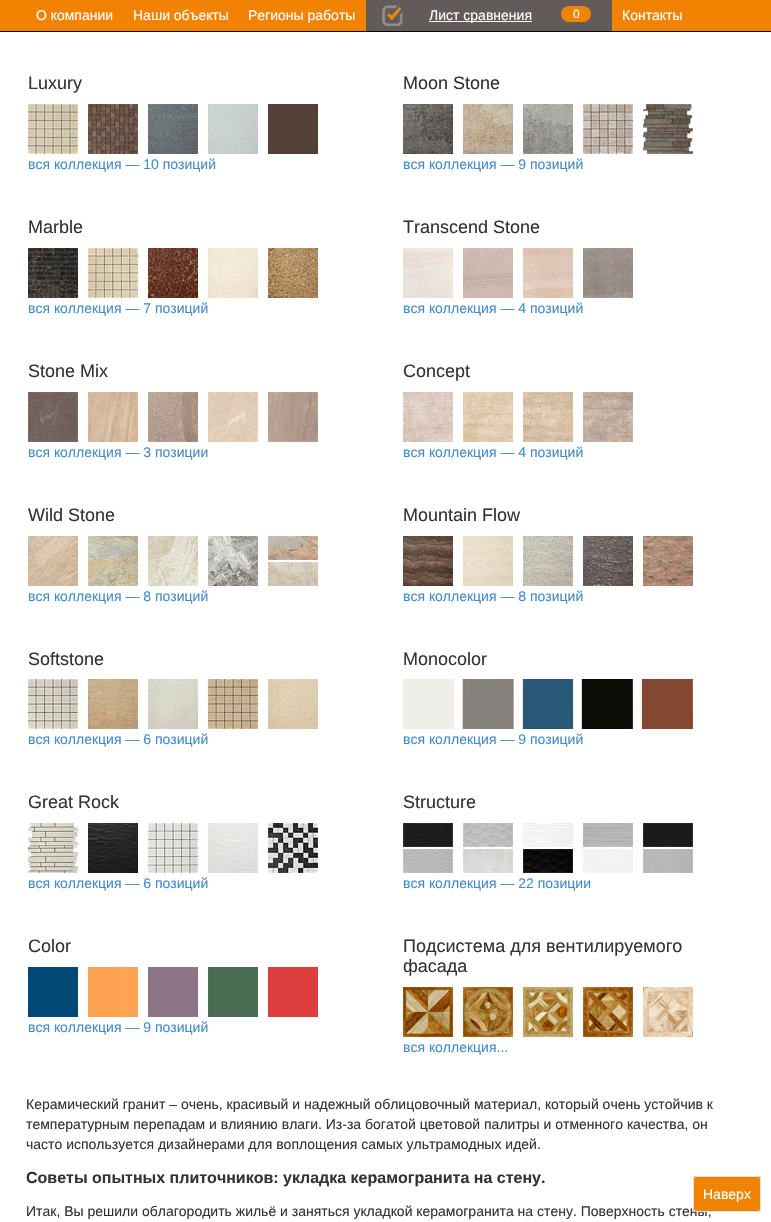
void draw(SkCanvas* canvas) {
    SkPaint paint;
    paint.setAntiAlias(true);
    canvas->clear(0xFFFFFFFF);
    paint.setColor(0xFFF28202);
    canvas->drawRect(SkRect::MakeXYWH(0, 0, 771, 31), paint);
    paint.setColor(0xFF080808);
    canvas->drawRect(SkRect::MakeXYWH(0, 31, 771, 1), paint);
    SkFont font1(fontMgr->matchFamilyStyle("Liberation Sans", SkFontStyle::Normal()), 14);
    font1.setSubpixel(true);
    paint.setColor(0xFFFFFFFF);
    canvas->drawString("О компании", 36, 20, font1, paint);
    canvas->drawString("Наши объекты", 133, 20, font1, paint);
    canvas->drawString("Регионы работы", 248, 20, font1, paint);
    paint.setColor(0xFF635A5A);
    canvas->drawRect(SkRect::MakeXYWH(366, 0, 246, 31), paint);
    canvas->drawImageRect(SkImages::DeferredFromEncodedData(SkData::MakeFromFileName("img1.png")), SkRect::MakeXYWH(382, 5, 21, 21), SkSamplingOptions());
    paint.setColor(0xFFFFFFFF);
    canvas->drawRect(SkRect::MakeXYWH(429, 21, 103, 1), paint);
    canvas->drawString("Лист сравнения", 429, 20, font1, paint);
    canvas->drawImageRect(SkImages::DeferredFromEncodedData(SkData::MakeFromFileName("img2.png")), SkRect::MakeXYWH(561, 6, 30, 16), SkSamplingOptions());
    SkFont font2(fontMgr->matchFamilyStyle("Liberation Sans", SkFontStyle::Normal()), 12);
    font2.setSubpixel(true);
    canvas->drawString("0", 573, 18, font2, paint);
    canvas->drawString("Контакты", 622, 20, font1, paint);
    SkFont font3(fontMgr->matchFamilyStyle("Liberation Sans", SkFontStyle::Normal()), 18);
    font3.setSubpixel(true);
    paint.setColor(0xFF333333);
    canvas->drawString("Luxury", 28, 89, font3, paint);
    canvas->drawImageRect(SkImages::DeferredFromEncodedData(SkData::MakeFromFileName("img3.png")), SkRect::MakeXYWH(28, 104, 290, 50), SkSamplingOptions());
    paint.setColor(0xFF428BCA);
    canvas->drawString("вся коллекция — 10 позиций", 28, 169, font1, paint);
    paint.setColor(0xFF333333);
    canvas->drawString("Moon Stone", 403, 89, font3, paint);
    canvas->drawImageRect(SkImages::DeferredFromEncodedData(SkData::MakeFromFileName("img4.png")), SkRect::MakeXYWH(403, 104, 290, 50), SkSamplingOptions());
    paint.setColor(0xFF428BCA);
    canvas->drawString("вся коллекция — 9 позиций", 403, 169, font1, paint);
    paint.setColor(0xFF333333);
    canvas->drawString("Marble", 28, 233, font3, paint);
    canvas->drawImageRect(SkImages::DeferredFromEncodedData(SkData::MakeFromFileName("img5.png")), SkRect::MakeXYWH(28, 248, 290, 50), SkSamplingOptions());
    paint.setColor(0xFF428BCA);
    canvas->drawString("вся коллекция — 7 позиций", 28, 313, font1, paint);
    paint.setColor(0xFF333333);
    canvas->drawString("Transcend Stone", 403, 233, font3, paint);
    canvas->drawImageRect(SkImages::DeferredFromEncodedData(SkData::MakeFromFileName("img6.png")), SkRect::MakeXYWH(403, 248, 231, 50), SkSamplingOptions());
    paint.setColor(0xFF428BCA);
    canvas->drawString("вся коллекция — 4 позиций", 403, 313, font1, paint);
    paint.setColor(0xFF333333);
    canvas->drawString("Stone Mix", 28, 377, font3, paint);
    canvas->drawImageRect(SkImages::DeferredFromEncodedData(SkData::MakeFromFileName("img7.png")), SkRect::MakeXYWH(28, 392, 290, 50), SkSamplingOptions());
    paint.setColor(0xFF428BCA);
    canvas->drawString("вся коллекция — 3 позиции", 28, 457, font1, paint);
    paint.setColor(0xFF333333);
    canvas->drawString("Concept", 403, 377, font3, paint);
    canvas->drawImageRect(SkImages::DeferredFromEncodedData(SkData::MakeFromFileName("img8.png")), SkRect::MakeXYWH(403, 392, 232, 50), SkSamplingOptions());
    paint.setColor(0xFF428BCA);
    canvas->drawString("вся коллекция — 4 позиций", 403, 457, font1, paint);
    paint.setColor(0xFF333333);
    canvas->drawString("Wild Stone", 28, 521, font3, paint);
    canvas->drawImageRect(SkImages::DeferredFromEncodedData(SkData::MakeFromFileName("img9.png")), SkRect::MakeXYWH(28, 536, 290, 50), SkSamplingOptions());
    paint.setColor(0xFF428BCA);
    canvas->drawString("вся коллекция — 8 позиций", 28, 601, font1, paint);
    paint.setColor(0xFF333333);
    canvas->drawString("Mountain Flow", 403, 521, font3, paint);
    canvas->drawImageRect(SkImages::DeferredFromEncodedData(SkData::MakeFromFileName("img10.png")), SkRect::MakeXYWH(403, 536, 290, 50), SkSamplingOptions());
    paint.setColor(0xFF428BCA);
    canvas->drawString("вся коллекция — 8 позиций", 403, 601, font1, paint);
    paint.setColor(0xFF333333);
    canvas->drawString("Softstone", 28, 665, font3, paint);
    canvas->drawImageRect(SkImages::DeferredFromEncodedData(SkData::MakeFromFileName("img11.png")), SkRect::MakeXYWH(28, 679, 290, 50), SkSamplingOptions());
    paint.setColor(0xFF428BCA);
    canvas->drawString("вся коллекция — 6 позиций", 28, 744, font1, paint);
    paint.setColor(0xFF333333);
    canvas->drawString("Monocolor", 403, 665, font3, paint);
    canvas->drawImageRect(SkImages::DeferredFromEncodedData(SkData::MakeFromFileName("img12.png")), SkRect::MakeXYWH(403, 679, 290, 50), SkSamplingOptions());
    paint.setColor(0xFF428BCA);
    canvas->drawString("вся коллекция — 9 позиций", 403, 744, font1, paint);
    paint.setColor(0xFF333333);
    canvas->drawString("Great Rock", 28, 808, font3, paint);
    canvas->drawImageRect(SkImages::DeferredFromEncodedData(SkData::MakeFromFileName("img13.png")), SkRect::MakeXYWH(28, 823, 290, 50), SkSamplingOptions());
    paint.setColor(0xFF428BCA);
    canvas->drawString("вся коллекция — 6 позиций", 28, 888, font1, paint);
    paint.setColor(0xFF333333);
    canvas->drawString("Structure", 403, 808, font3, paint);
    canvas->drawImageRect(SkImages::DeferredFromEncodedData(SkData::MakeFromFileName("img14.png")), SkRect::MakeXYWH(403, 823, 290, 50), SkSamplingOptions());
    paint.setColor(0xFF428BCA);
    canvas->drawString("вся коллекция — 22 позиции", 403, 888, font1, paint);
    paint.setColor(0xFF333333);
    canvas->drawString("Color", 28, 952, font3, paint);
    canvas->drawImageRect(SkImages::DeferredFromEncodedData(SkData::MakeFromFileName("img15.png")), SkRect::MakeXYWH(28, 967, 290, 50), SkSamplingOptions());
    paint.setColor(0xFF428BCA);
    canvas->drawString("вся коллекция — 9 позиций", 28, 1032, font1, paint);
    paint.setColor(0xFF333333);
    canvas->drawString("Подсистема для вентилируемого", 403, 952, font3, paint);
    canvas->drawString("фасада", 403, 972, font3, paint);
    canvas->drawImageRect(SkImages::DeferredFromEncodedData(SkData::MakeFromFileName("img16.png")), SkRect::MakeXYWH(403, 987, 290, 50), SkSamplingOptions());
    paint.setColor(0xFF428BCA);
    canvas->drawString("вся коллекция...", 403, 1052, font1, paint);
    paint.setColor(0xFF333333);
    canvas->drawString("Керамический гранит – очень, красивый и надежный облицовочный материал, который очень устойчив к", 26, 1109, font1, paint);
    canvas->drawString("температурным перепадам и влиянию влаги. Из-за богатой цветовой палитры и отменного качества, он", 26, 1129, font1, paint);
    canvas->drawString("часто используется дизайнерами для воплощения самых ультрамодных идей.", 26, 1149, font1, paint);
    SkFont font4(fontMgr->matchFamilyStyle("Liberation Sans", SkFontStyle::Bold()), 16);
    font4.setSubpixel(true);
    canvas->drawString("Советы опытных плиточников: укладка керамогранита на стену.", 26, 1183, font4, paint);
    canvas->drawString("Итак, Вы решили облагородить жильё и заняться укладкой керамогранита на стену. Поверхность стены,", 26, 1216, font1, paint);
    paint.setColor(0xFFF18302);
    canvas->drawRoundRect(SkRect::MakeXYWH(693, 1176, 68, 36), 3, 3, paint);
    paint.setColor(0xFFE57C02);
    canvas->drawPath(SkPathBuilder().moveTo(696, 1178).lineTo(759, 1178).lineTo(760, 1180).cubicTo(760, 1174, 751, 1177, 748, 1177).lineTo(706, 1177).cubicTo(703, 1177, 694, 1174, 694, 1180).cubicTo(694, 1179, 695, 1178, 696, 1178).close().detach(), paint);
    paint.setStyle(SkPaint::kStroke_Style);
    paint.setStrokeWidth(1);
    paint.setColor(0xFFE3E3E3);
    canvas->drawRoundRect(SkRect::MakeXYWH(693.5f, 1176.5f, 67, 35), 2.5f, 2.5f, paint);
    paint.setStyle(SkPaint::kFill_Style);
    paint.setColor(0xFFFFFFFF);
    canvas->drawString("Наверх", 703, 1199, font1, paint);
}
